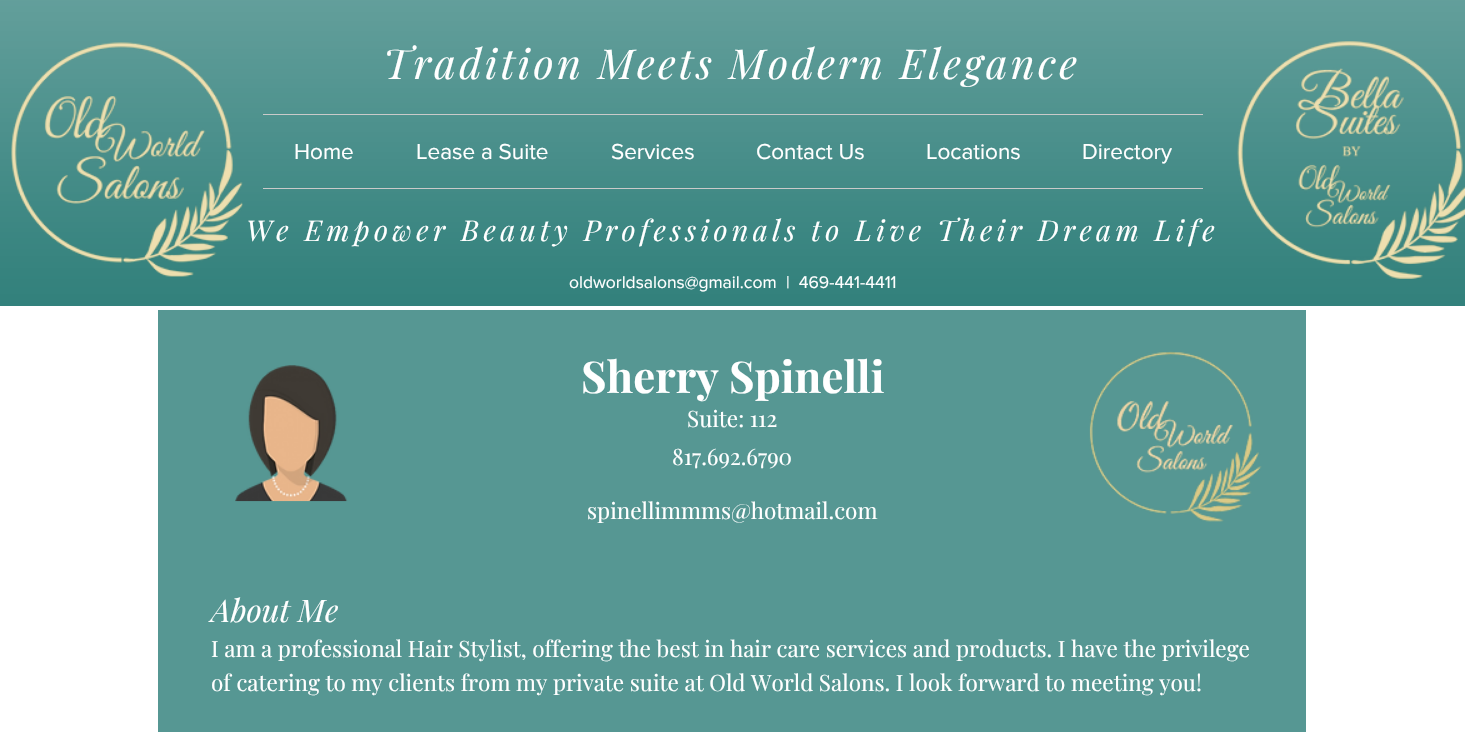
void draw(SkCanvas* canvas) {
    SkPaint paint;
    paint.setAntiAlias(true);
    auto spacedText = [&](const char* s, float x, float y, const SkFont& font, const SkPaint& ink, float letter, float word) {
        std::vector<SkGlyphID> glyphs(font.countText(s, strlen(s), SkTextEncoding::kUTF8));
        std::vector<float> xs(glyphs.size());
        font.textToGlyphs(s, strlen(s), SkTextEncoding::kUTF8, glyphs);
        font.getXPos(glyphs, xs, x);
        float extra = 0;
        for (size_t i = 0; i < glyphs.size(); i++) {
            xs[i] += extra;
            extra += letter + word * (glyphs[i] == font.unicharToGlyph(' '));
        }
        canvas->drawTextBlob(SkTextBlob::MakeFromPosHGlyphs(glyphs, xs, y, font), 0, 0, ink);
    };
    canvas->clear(0xFFFFFFFF);
    paint.setColor(0xFF2C7D78);
    canvas->drawRect(SkRect::MakeXYWH(0, 0, 1465, 306), paint);
    canvas->drawImageRect(SkImages::DeferredFromEncodedData(SkData::MakeFromFileName("img1.png")), SkRect::MakeXYWH(0, 0, 1465, 306), SkSamplingOptions());
    canvas->drawImageRect(SkImages::DeferredFromEncodedData(SkData::MakeFromFileName("img2.png")), SkRect::MakeXYWH(11, 42, 232, 235), SkSamplingOptions());
    SkFont font1(fontMgr->matchFamilyStyle("Playfair Display", SkFontStyle::Italic()), 41.25f);
    font1.setSubpixel(true);
    paint.setColor(0xFFFFFFFF);
    spacedText("Tradition Meets Modern Elegance", 383, 79, font1, paint, 3.3f, 0);
    canvas->drawImageRect(SkImages::DeferredFromEncodedData(SkData::MakeFromFileName("img3.png")), SkRect::MakeXYWH(1237, 41, 228, 238), SkSamplingOptions());
    paint.setColor(0xFFCACACA);
    canvas->drawRect(SkRect::MakeXYWH(263, 114, 940, 1), paint);
    canvas->drawRect(SkRect::MakeXYWH(263, 188, 940, 1), paint);
    SkFont font2(fontMgr->matchFamilyStyle("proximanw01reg", SkFontStyle::Normal()), 22.5f);
    font2.setSubpixel(true);
    paint.setColor(0xFFFFFFFF);
    canvas->drawString("Home", 294, 159, font2, paint);
    canvas->drawString("Lease a Suite", 416, 159, font2, paint);
    canvas->drawString("Services", 611, 159, font2, paint);
    canvas->drawString("Contact Us", 756, 159, font2, paint);
    canvas->drawString("Locations", 926, 159, font2, paint);
    canvas->drawString("Directory", 1082, 159, font2, paint);
    SkFont font3(fontMgr->matchFamilyStyle("Playfair Display", SkFontStyle::Italic()), 28.75f);
    font3.setSubpixel(true);
    spacedText("We Empower Beauty Professionals to Live Their Dream Life", 246, 241, font3, paint, 4.3f, 0);
    SkFont font4(fontMgr->matchFamilyStyle("proximanw01reg", SkFontStyle::Normal()), 17.5f);
    font4.setSubpixel(true);
    canvas->drawString("oldworldsalons@gmail.com", 569, 288, font4, paint);
    canvas->drawString("|  469-441-4411", 786, 288, font4, paint);
    paint.setColor(0xFF569793);
    canvas->drawRect(SkRect::MakeXYWH(158, 310, 1148, 422), paint);
    canvas->drawImageRect(SkImages::DeferredFromEncodedData(SkData::MakeFromFileName("img4.png")), SkRect::MakeXYWH(235, 365, 113, 137), SkSamplingOptions());
    SkFont font5(fontMgr->matchFamilyStyle("Playfair Display", SkFontStyle::Bold()), 43.75f);
    font5.setSubpixel(true);
    paint.setColor(0xFFFFFFFF);
    canvas->drawString("Sherry Spinelli", 581, 393, font5, paint);
    canvas->drawImageRect(SkImages::DeferredFromEncodedData(SkData::MakeFromFileName("img5.png")), SkRect::MakeXYWH(1089, 351, 173, 171), SkSamplingOptions());
    SkFont font6(fontMgr->matchFamilyStyle("Playfair Display", SkFontStyle::Normal()), 22.5f);
    font6.setSubpixel(true);
    canvas->drawString("Suite: 112", 687, 427, font6, paint);
    canvas->drawString("817.692.6790", 672, 465, font6, paint);
    canvas->drawString("spinellimmms@hotmail.com", 587, 519, font6, paint);
    SkFont font7(fontMgr->matchFamilyStyle("Playfair Display", SkFontStyle::Italic()), 31.25f);
    font7.setSubpixel(true);
    canvas->drawString("About Me", 211, 622, font7, paint);
    canvas->drawString("I am a professional Hair Stylist, offering the best in hair care services and products. I have the privilege", 211, 657, font6, paint);
    canvas->drawString("of catering to my clients from my private suite at Old World Salons. I look forward to meeting you!", 211, 691, font6, paint);
}
